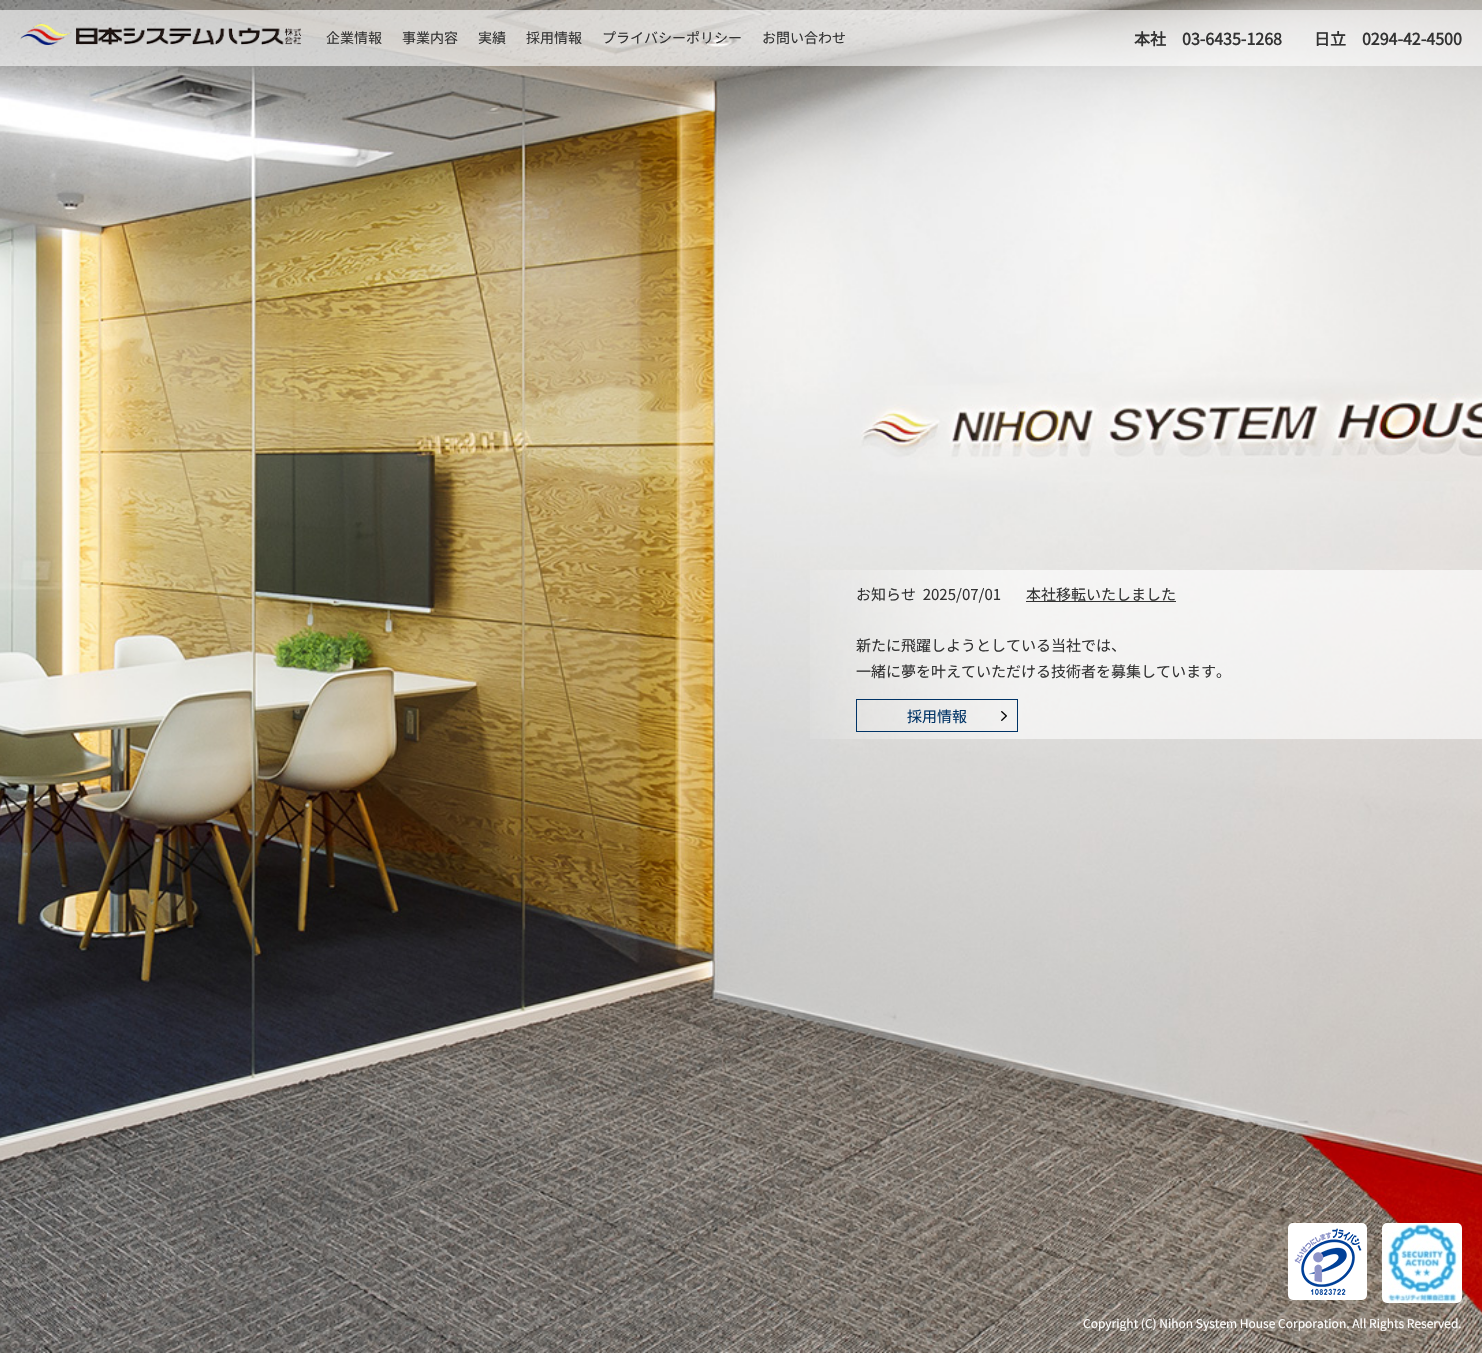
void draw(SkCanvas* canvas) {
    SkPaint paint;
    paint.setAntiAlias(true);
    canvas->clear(0xFFFFFFFF);
    canvas->drawImageRect(SkImages::DeferredFromEncodedData(SkData::MakeFromFileName("img1.png")), SkRect::MakeXYWH(0, 0, 1482, 1353), SkSamplingOptions());
    paint.setColor(0x99FFFFFF);
    canvas->drawRect(SkRect::MakeXYWH(0, 10, 1482, 56), paint);
    canvas->drawImageRect(SkImages::DeferredFromEncodedData(SkData::MakeFromFileName("img2.png")), SkRect::MakeXYWH(20, 24, 281, 21), SkSamplingOptions());
    SkFont font1(fontMgr->matchFamilyStyle("Noto Sans JP", SkFontStyle(100, SkFontStyle::kNormal_Width, SkFontStyle::kUpright_Slant)), 14);
    font1.setSubpixel(true);
    paint.setColor(0xFF333333);
    canvas->drawString("企業情報", 326, 43, font1, paint);
    canvas->drawString("事業内容", 402, 43, font1, paint);
    canvas->drawString("実績", 478, 43, font1, paint);
    canvas->drawString("採用情報", 526, 43, font1, paint);
    canvas->drawString("プライバシーポリシー", 602, 43, font1, paint);
    canvas->drawString("お問い合わせ", 762, 43, font1, paint);
    SkFont font2(fontMgr->matchFamilyStyle("Noto Sans JP", SkFontStyle::Bold()), 16);
    font2.setSubpixel(true);
    canvas->drawString("本社　03-6435-1268　　日立　0294-42-4500", 1134, 45, font2, paint);
    canvas->drawImageRect(SkImages::DeferredFromEncodedData(SkData::MakeFromFileName("img3.png")), SkRect::MakeXYWH(810, 570, 672, 169), SkSamplingOptions());
    SkFont font3(fontMgr->matchFamilyStyle("Noto Sans JP", SkFontStyle(100, SkFontStyle::kNormal_Width, SkFontStyle::kUpright_Slant)), 15);
    font3.setSubpixel(true);
    canvas->drawString("お知らせ   2025/07/01", 856, 600, font3, paint);
    canvas->drawRect(SkRect::MakeXYWH(1026, 601, 150, 1), paint);
    canvas->drawString("本社移転いたしました", 1026, 600, font3, paint);
    canvas->drawString("新たに飛躍しようとしている当社では、", 856, 651, font3, paint);
    canvas->drawString("一緒に夢を叶えていただける技術者を募集しています。", 856, 677, font3, paint);
    canvas->drawImageRect(SkImages::DeferredFromEncodedData(SkData::MakeFromFileName("img4.png")), SkRect::MakeXYWH(1001, 711, 6, 10), SkSamplingOptions());
    paint.setStyle(SkPaint::kStroke_Style);
    paint.setStrokeWidth(1);
    paint.setColor(0xFF003366);
    canvas->drawRect(SkRect::MakeXYWH(856.5f, 699.5f, 161, 32), paint);
    paint.setStyle(SkPaint::kFill_Style);
    canvas->drawString("採用情報", 907, 722, font3, paint);
    canvas->drawImageRect(SkImages::DeferredFromEncodedData(SkData::MakeFromFileName("img5.png")), SkRect::MakeXYWH(1288, 1223, 79, 77), SkSamplingOptions());
    canvas->drawImageRect(SkImages::DeferredFromEncodedData(SkData::MakeFromFileName("img6.png")), SkRect::MakeXYWH(1382, 1223, 80, 80), SkSamplingOptions());
    SkFont font4(fontMgr->matchFamilyStyle("Noto Sans JP", SkFontStyle(100, SkFontStyle::kNormal_Width, SkFontStyle::kUpright_Slant)), 12);
    font4.setSubpixel(true);
    paint.setColor(0xFFFFFFFF);
    canvas->drawString("Copyright (C) Nihon System House Corporation. All Rights Reserved.", 1083, 1328, font4, paint);
}
